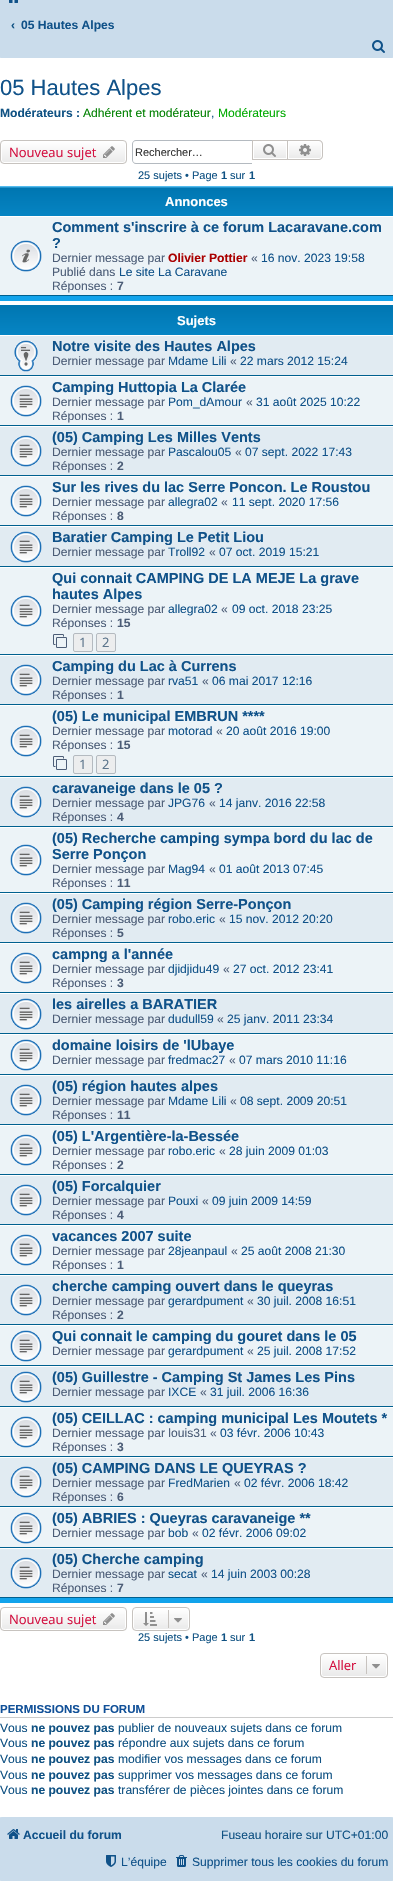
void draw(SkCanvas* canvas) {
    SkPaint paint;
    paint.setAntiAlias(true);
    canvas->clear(0xFFFFFFFF);
    paint.setColor(0xFFCADCEB);
    canvas->drawRoundRect(SkRect::MakeXYWH(-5, -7, 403, 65), 7, 7, paint);
    canvas->drawImageRect(SkImages::DeferredFromEncodedData(SkData::MakeFromFileName("img1.png")), SkRect::MakeXYWH(9, 0, 9, 3), SkSamplingOptions());
    SkFont font1(fontMgr->matchFamilyStyle("Liberation Sans", SkFontStyle::Bold()), 12.1f);
    font1.setSubpixel(true);
    paint.setColor(0xFF105283);
    canvas->drawString("‹", 11, 29, font1, paint);
    paint.setColor(0xFF105289);
    canvas->drawString("05 Hautes Alpes", 21, 29, font1, paint);
    canvas->drawImageRect(SkImages::DeferredFromEncodedData(SkData::MakeFromFileName("img2.png")), SkRect::MakeXYWH(372, 40, 13, 13), SkSamplingOptions());
    SkFont font2(fontMgr->matchFamilyStyle("Liberation Sans", SkFontStyle::Normal()), 22);
    font2.setSubpixel(true);
    canvas->drawString("05 Hautes Alpes", 0, 95, font2, paint);
    paint.setColor(0xFF105283);
    canvas->drawString("Modérateurs :", 0, 117, font1, paint);
    SkFont font3(fontMgr->matchFamilyStyle("Liberation Sans", SkFontStyle::Normal()), 12.1f);
    font3.setSubpixel(true);
    paint.setColor(0xFF008000);
    canvas->drawString("Adhérent et modérateur", 83, 117, font3, paint);
    paint.setColor(0xFF105283);
    canvas->drawString(",", 211, 117, font3, paint);
    paint.setColor(0xFF00AA00);
    canvas->drawString("Modérateurs", 218, 117, font3, paint);
    canvas->save();
    canvas->clipPath(SkPathBuilder().moveTo(4, 140).lineTo(123, 140).cubicTo(125, 140, 127, 142, 127, 144).lineTo(127, 160).cubicTo(127, 162, 125, 164, 123, 164).lineTo(4, 164).cubicTo(2, 164, 0, 162, 0, 160).lineTo(0, 144).cubicTo(0, 142, 2, 140, 4, 140).close().detach(), true);
    {
        const SkColor colors[] = {0xFFFFFFFF, 0xFFE9E9E9};
        const float stops[] = {0, 1};
        const SkPoint ends[] = {{64, 141}, {64, 163}};
        paint.setShader(SkGradientShader::MakeLinear(ends, colors, stops, 2, SkTileMode::kClamp));
        paint.setAlpha(255);
    }
    canvas->drawRect(SkRect::MakeXYWH(0, 141, 127, 22), paint);
    canvas->restore();
    paint.setStyle(SkPaint::kStroke_Style);
    paint.setStrokeWidth(1);
    paint.setShader(nullptr);
    paint.setColor(0xFFFFFFFF);
    canvas->drawRoundRect(SkRect::MakeXYWH(1.5f, 141.5f, 124, 21), 2.5f, 2.5f, paint);
    paint.setColor(0xFFC7C3BF);
    canvas->drawRoundRect(SkRect::MakeXYWH(0.5f, 140.5f, 126, 23), 3.5f, 3.5f, paint);
    SkFont font4(fontMgr->matchFamilyStyle("Open Sans", SkFontStyle::Normal()), 13);
    font4.setSubpixel(true);
    paint.setStyle(SkPaint::kFill_Style);
    paint.setColor(0xFFD31141);
    canvas->drawString("Nouveau sujet", 9, 157, font4, paint);
    canvas->drawImageRect(SkImages::DeferredFromEncodedData(SkData::MakeFromFileName("img3.png")), SkRect::MakeXYWH(103, 146, 12, 12), SkSamplingOptions());
    paint.setColor(0xFFB4BAC0);
    canvas->drawPath(SkPathBuilder(SkPathFillType::kEvenOdd).moveTo(136, 140).lineTo(252, 140).lineTo(252, 164).lineTo(136, 164).cubicTo(134, 164, 132, 162, 132, 160).lineTo(132, 144).cubicTo(132, 142, 134, 140, 136, 140).close().moveTo(136, 141).lineTo(252, 141).lineTo(252, 163).lineTo(136, 163).cubicTo(134, 163, 133, 162, 133, 160).lineTo(133, 144).cubicTo(133, 142, 134, 141, 136, 141).close().detach(), paint);
    SkFont font5(fontMgr->matchFamilyStyle("Liberation Sans", SkFontStyle::Normal()), 11);
    font5.setSubpixel(true);
    paint.setColor(0xFF333333);
    canvas->drawString("Rechercher…", 135, 156, font5, paint);
    {
        const SkColor colors[] = {0xFFFFFFFF, 0xFFE9E9E9};
        const float stops[] = {0, 1};
        const SkPoint ends[] = {{270, 141}, {270, 159}};
        paint.setShader(SkGradientShader::MakeLinear(ends, colors, stops, 2, SkTileMode::kClamp));
        paint.setAlpha(255);
    }
    canvas->drawRect(SkRect::MakeXYWH(254, 143, 32, 15), paint);
    paint.setStyle(SkPaint::kStroke_Style);
    paint.setShader(nullptr);
    paint.setColor(0xFFC7C3BF);
    canvas->drawRect(SkRect::MakeXYWH(252.5f, 140.5f, 35, 19), paint);
    canvas->drawImageRect(SkImages::DeferredFromEncodedData(SkData::MakeFromFileName("img4.png")), SkRect::MakeXYWH(263, 144, 13, 13), SkSamplingOptions());
    paint.setStyle(SkPaint::kFill_Style);
    {
        const SkColor colors[] = {0xFFFFFFFF, 0xFFE9E9E9};
        const float stops[] = {0, 1};
        const SkPoint ends[] = {{305, 141}, {305, 159}};
        paint.setShader(SkGradientShader::MakeLinear(ends, colors, stops, 2, SkTileMode::kClamp));
        paint.setAlpha(255);
    }
    canvas->drawPath(SkPathBuilder().moveTo(288.5f, 141.5f).lineTo(319, 141.5f).cubicTo(320.5f, 141.5f, 321.5f, 142.5f, 321.5f, 144).lineTo(321.5f, 156).cubicTo(321.5f, 157.5f, 320.5f, 158.5f, 319, 158.5f).lineTo(288.5f, 158.5f).close().detach(), paint);
    paint.setStyle(SkPaint::kStroke_Style);
    paint.setShader(nullptr);
    paint.setColor(0xFFFFFFFF);
    canvas->drawPath(SkPathBuilder().moveTo(288.5f, 141.5f).lineTo(319, 141.5f).cubicTo(320.5f, 141.5f, 321.5f, 142.5f, 321.5f, 144).lineTo(321.5f, 156).cubicTo(321.5f, 157.5f, 320.5f, 158.5f, 319, 158.5f).lineTo(288.5f, 158.5f).close().detach(), paint);
    paint.setStyle(SkPaint::kFill_Style);
    paint.setColor(0xFFC7C3BF);
    canvas->drawPath(SkPathBuilder(SkPathFillType::kEvenOdd).moveTo(288, 140).lineTo(319, 140).cubicTo(321, 140, 323, 142, 323, 144).lineTo(323, 156).cubicTo(323, 158, 321, 160, 319, 160).lineTo(288, 160).close().moveTo(288, 141).lineTo(319, 141).cubicTo(320.5f, 141, 322, 142.5f, 322, 144).lineTo(322, 156).cubicTo(322, 157.5f, 320.5f, 159, 319, 159).lineTo(288, 159).close().detach(), paint);
    canvas->drawImageRect(SkImages::DeferredFromEncodedData(SkData::MakeFromFileName("img5.png")), SkRect::MakeXYWH(299, 144, 12, 12), SkSamplingOptions());
    paint.setColor(0xFF105283);
    canvas->drawString("25 sujets • Page", 138, 179, font5, paint);
    SkFont font6(fontMgr->matchFamilyStyle("Liberation Sans", SkFontStyle::Bold()), 11);
    font6.setSubpixel(true);
    canvas->drawString("1", 221, 179, font6, paint);
    canvas->drawString("sur", 230, 179, font5, paint);
    canvas->drawString("1", 249, 179, font6, paint);
    {
        const SkColor colors[] = {0xFF6ACEFF, 0xFF0076B1, 0xFF12A3EB, 0xFF12A3EB};
        const float stops[] = {0, 0.02f, 0.8f, 1};
        const SkPoint ends[] = {{197, 186}, {197, 301}};
        paint.setShader(SkGradientShader::MakeLinear(ends, colors, stops, 4, SkTileMode::kClamp));
        paint.setAlpha(255);
    }
    canvas->drawRect(SkRect::MakeXYWH(0, 186, 393, 115), paint);
    SkFont font7(fontMgr->matchFamilyStyle("Liberation Sans", SkFontStyle::Bold()), 13);
    font7.setSubpixel(true);
    paint.setShader(nullptr);
    paint.setColor(0xFFFFFFFF);
    canvas->drawString("Annonces", 165, 206, font7, paint);
    paint.setColor(0xFFECF3F7);
    canvas->drawRect(SkRect::MakeXYWH(0, 217, 393, 78), paint);
    paint.setColor(0xFFFFFFFF);
    canvas->drawRect(SkRect::MakeXYWH(0, 216, 393, 1), paint);
    paint.setColor(0xFF00608F);
    canvas->drawRect(SkRect::MakeXYWH(0, 295, 393, 1), paint);
    canvas->drawImageRect(SkImages::DeferredFromEncodedData(SkData::MakeFromFileName("img6.png")), SkRect::MakeXYWH(10, 240, 32, 32), SkSamplingOptions());
    SkFont font8(fontMgr->matchFamilyStyle("Liberation Sans", SkFontStyle::Bold()), 14.5f);
    font8.setSubpixel(true);
    paint.setColor(0xFF105289);
    canvas->drawString("Comment s'inscrire à ce forum Lacaravane.com", 52, 232, font8, paint);
    canvas->drawString("?", 52, 248, font8, paint);
    paint.setColor(0xFF4C5D77);
    canvas->drawString("Dernier message par", 52, 262, font3, paint);
    paint.setColor(0xFFAA0000);
    canvas->drawString("Olivier Pottier", 168, 262, font1, paint);
    paint.setColor(0xFF4C5D77);
    canvas->drawString("«", 251, 262, font3, paint);
    paint.setColor(0xFF105289);
    canvas->drawString("16 nov. 2023 19:58", 261, 262, font3, paint);
    paint.setColor(0xFF4C5D77);
    canvas->drawString("Publié dans", 52, 276, font3, paint);
    paint.setColor(0xFF105289);
    canvas->drawString("Le site La Caravane", 119, 276, font3, paint);
    paint.setColor(0xFF4C5D77);
    canvas->drawString("Réponses :", 52, 290, font3, paint);
    canvas->drawString("7", 117, 290, font1, paint);
    {
        const SkColor colors[] = {0xFF6ACEFF, 0xFF0076B1, 0xFF12A3EB, 0xFF12A3EB};
        const float stops[] = {0, 0, 0.07f, 1};
        const SkPoint ends[] = {{196, 305}, {197, 1603}};
        paint.setShader(SkGradientShader::MakeLinear(ends, colors, stops, 4, SkTileMode::kClamp));
        paint.setAlpha(255);
    }
    canvas->drawRect(SkRect::MakeXYWH(0, 305, 393, 1298), paint);
    paint.setShader(nullptr);
    paint.setColor(0xFFFFFFFF);
    canvas->drawString("Sujets", 177, 325, font7, paint);
    paint.setColor(0xFFE1EBF2);
    canvas->drawRect(SkRect::MakeXYWH(0, 336, 393, 39), paint);
    paint.setColor(0xFFFFFFFF);
    canvas->drawRect(SkRect::MakeXYWH(0, 335, 393, 1), paint);
    paint.setColor(0xFF00608F);
    canvas->drawRect(SkRect::MakeXYWH(0, 375, 393, 1), paint);
    canvas->drawImageRect(SkImages::DeferredFromEncodedData(SkData::MakeFromFileName("img7.png")), SkRect::MakeXYWH(14, 340, 24, 32), SkSamplingOptions());
    paint.setColor(0xFF105289);
    canvas->drawString("Notre visite des Hautes Alpes", 52, 351, font8, paint);
    paint.setColor(0xFF4C5D77);
    canvas->drawString("Dernier message par", 52, 365, font3, paint);
    paint.setColor(0xFF105289);
    canvas->drawString("Mdame Lili", 168, 365, font3, paint);
    paint.setColor(0xFF4C5D77);
    canvas->drawString("«", 230, 365, font3, paint);
    paint.setColor(0xFF105289);
    canvas->drawString("22 mars 2012 15:24", 240, 365, font3, paint);
    paint.setColor(0xFFECF3F7);
    canvas->drawRect(SkRect::MakeXYWH(0, 377, 393, 48), paint);
    paint.setColor(0xFFFFFFFF);
    canvas->drawRect(SkRect::MakeXYWH(0, 376, 393, 1), paint);
    paint.setColor(0xFF00608F);
    canvas->drawRect(SkRect::MakeXYWH(0, 425, 393, 1), paint);
    canvas->drawImageRect(SkImages::DeferredFromEncodedData(SkData::MakeFromFileName("img8.png")), SkRect::MakeXYWH(10, 385, 32, 32), SkSamplingOptions());
    paint.setColor(0xFF105289);
    canvas->drawString("Camping Huttopia La Clarée", 52, 392, font8, paint);
    paint.setColor(0xFF4C5D77);
    canvas->drawString("Dernier message par", 52, 406, font3, paint);
    paint.setColor(0xFF105289);
    canvas->drawString("Pom_dAmour", 168, 406, font3, paint);
    paint.setColor(0xFF4C5D77);
    canvas->drawString("«", 246, 406, font3, paint);
    paint.setColor(0xFF105289);
    canvas->drawString("31 août 2025 10:22", 256, 406, font3, paint);
    paint.setColor(0xFF4C5D77);
    canvas->drawString("Réponses :", 52, 420, font3, paint);
    canvas->drawString("1", 117, 420, font1, paint);
    paint.setColor(0xFFE1EBF2);
    canvas->drawRect(SkRect::MakeXYWH(0, 427, 393, 48), paint);
    paint.setColor(0xFFFFFFFF);
    canvas->drawRect(SkRect::MakeXYWH(0, 426, 393, 1), paint);
    paint.setColor(0xFF00608F);
    canvas->drawRect(SkRect::MakeXYWH(0, 475, 393, 1), paint);
    canvas->drawImageRect(SkImages::DeferredFromEncodedData(SkData::MakeFromFileName("img9.png")), SkRect::MakeXYWH(10, 435, 32, 32), SkSamplingOptions());
    paint.setColor(0xFF105289);
    canvas->drawString("(05) Camping Les Milles Vents", 52, 442, font8, paint);
    paint.setColor(0xFF4C5D77);
    canvas->drawString("Dernier message par", 52, 456, font3, paint);
    paint.setColor(0xFF105289);
    canvas->drawString("Pascalou05", 168, 456, font3, paint);
    paint.setColor(0xFF4C5D77);
    canvas->drawString("«", 235, 456, font3, paint);
    paint.setColor(0xFF105289);
    canvas->drawString("07 sept. 2022 17:43", 245, 456, font3, paint);
    paint.setColor(0xFF4C5D77);
    canvas->drawString("Réponses :", 52, 470, font3, paint);
    canvas->drawString("2", 117, 470, font1, paint);
    paint.setColor(0xFFECF3F7);
    canvas->drawRect(SkRect::MakeXYWH(0, 477, 393, 48), paint);
    paint.setColor(0xFFFFFFFF);
    canvas->drawRect(SkRect::MakeXYWH(0, 476, 393, 1), paint);
    paint.setColor(0xFF00608F);
    canvas->drawRect(SkRect::MakeXYWH(0, 525, 393, 1), paint);
    canvas->drawImageRect(SkImages::DeferredFromEncodedData(SkData::MakeFromFileName("img8.png")), SkRect::MakeXYWH(10, 485, 32, 32), SkSamplingOptions());
    paint.setColor(0xFF105289);
    canvas->drawString("Sur les rives du lac Serre Poncon. Le Roustou", 52, 492, font8, paint);
    paint.setColor(0xFF4C5D77);
    canvas->drawString("Dernier message par", 52, 506, font3, paint);
    paint.setColor(0xFF105289);
    canvas->drawString("allegra02", 168, 506, font3, paint);
    paint.setColor(0xFF4C5D77);
    canvas->drawString("«", 221, 506, font3, paint);
    paint.setColor(0xFF105289);
    canvas->drawString("11 sept. 2020 17:56", 232, 506, font3, paint);
    paint.setColor(0xFF4C5D77);
    canvas->drawString("Réponses :", 52, 520, font3, paint);
    canvas->drawString("8", 117, 520, font1, paint);
    paint.setColor(0xFFE1EBF2);
    canvas->drawRect(SkRect::MakeXYWH(0, 527, 393, 39), paint);
    paint.setColor(0xFFFFFFFF);
    canvas->drawRect(SkRect::MakeXYWH(0, 526, 393, 1), paint);
    paint.setColor(0xFF00608F);
    canvas->drawRect(SkRect::MakeXYWH(0, 566, 393, 1), paint);
    canvas->drawImageRect(SkImages::DeferredFromEncodedData(SkData::MakeFromFileName("img9.png")), SkRect::MakeXYWH(10, 531, 32, 32), SkSamplingOptions());
    paint.setColor(0xFF105289);
    canvas->drawString("Baratier Camping Le Petit Liou", 52, 542, font8, paint);
    paint.setColor(0xFF4C5D77);
    canvas->drawString("Dernier message par", 52, 556, font3, paint);
    paint.setColor(0xFF105289);
    canvas->drawString("Troll92", 168, 556, font3, paint);
    paint.setColor(0xFF4C5D77);
    canvas->drawString("«", 209, 556, font3, paint);
    paint.setColor(0xFF105289);
    canvas->drawString("07 oct. 2019 15:21", 219, 556, font3, paint);
    paint.setColor(0xFFECF3F7);
    canvas->drawRect(SkRect::MakeXYWH(0, 568, 393, 86), paint);
    paint.setColor(0xFFFFFFFF);
    canvas->drawRect(SkRect::MakeXYWH(0, 567, 393, 1), paint);
    paint.setColor(0xFF00608F);
    canvas->drawRect(SkRect::MakeXYWH(0, 654, 393, 1), paint);
    canvas->drawImageRect(SkImages::DeferredFromEncodedData(SkData::MakeFromFileName("img8.png")), SkRect::MakeXYWH(10, 595, 32, 32), SkSamplingOptions());
    paint.setColor(0xFF105289);
    canvas->drawString("Qui connait CAMPING DE LA MEJE La grave", 52, 583, font8, paint);
    canvas->drawString("hautes Alpes", 52, 599, font8, paint);
    paint.setColor(0xFF4C5D77);
    canvas->drawString("Dernier message par", 52, 613, font3, paint);
    paint.setColor(0xFF105289);
    canvas->drawString("allegra02", 168, 613, font3, paint);
    paint.setColor(0xFF4C5D77);
    canvas->drawString("«", 221, 613, font3, paint);
    paint.setColor(0xFF105289);
    canvas->drawString("09 oct. 2018 23:25", 232, 613, font3, paint);
    paint.setColor(0xFF4C5D77);
    canvas->drawString("Réponses :", 52, 627, font3, paint);
    canvas->drawString("15", 117, 627, font1, paint);
    canvas->drawImageRect(SkImages::DeferredFromEncodedData(SkData::MakeFromFileName("img10.png")), SkRect::MakeXYWH(53, 634, 14, 14), SkSamplingOptions());
    paint.setColor(0xFFECEDEE);
    canvas->drawRoundRect(SkRect::MakeXYWH(73.5f, 633.5f, 19, 18), 1.5f, 1.5f, paint);
    paint.setStyle(SkPaint::kStroke_Style);
    paint.setColor(0xFFB4BAC0);
    canvas->drawRoundRect(SkRect::MakeXYWH(73.5f, 633.5f, 19, 18), 1.5f, 1.5f, paint);
    paint.setStyle(SkPaint::kFill_Style);
    paint.setColor(0xFF5C758C);
    canvas->drawString("1", 79, 647, font4, paint);
    paint.setColor(0xFFECEDEE);
    canvas->drawRoundRect(SkRect::MakeXYWH(96.5f, 633.5f, 19, 18), 1.5f, 1.5f, paint);
    paint.setStyle(SkPaint::kStroke_Style);
    paint.setColor(0xFFB4BAC0);
    canvas->drawRoundRect(SkRect::MakeXYWH(96.5f, 633.5f, 19, 18), 1.5f, 1.5f, paint);
    paint.setStyle(SkPaint::kFill_Style);
    paint.setColor(0xFF5C758C);
    canvas->drawString("2", 102, 647, font4, paint);
    paint.setColor(0xFFE1EBF2);
    canvas->drawRect(SkRect::MakeXYWH(0, 656, 393, 48), paint);
    paint.setColor(0xFFFFFFFF);
    canvas->drawRect(SkRect::MakeXYWH(0, 655, 393, 1), paint);
    paint.setColor(0xFF00608F);
    canvas->drawRect(SkRect::MakeXYWH(0, 704, 393, 1), paint);
    canvas->drawImageRect(SkImages::DeferredFromEncodedData(SkData::MakeFromFileName("img9.png")), SkRect::MakeXYWH(10, 664, 32, 32), SkSamplingOptions());
    paint.setColor(0xFF105289);
    canvas->drawString("Camping du Lac à Currens", 52, 671, font8, paint);
    paint.setColor(0xFF4C5D77);
    canvas->drawString("Dernier message par", 52, 685, font3, paint);
    paint.setColor(0xFF105289);
    canvas->drawString("rva51", 168, 685, font3, paint);
    paint.setColor(0xFF4C5D77);
    canvas->drawString("«", 202, 685, font3, paint);
    paint.setColor(0xFF105289);
    canvas->drawString("06 mai 2017 12:16", 212, 685, font3, paint);
    paint.setColor(0xFF4C5D77);
    canvas->drawString("Réponses :", 52, 699, font3, paint);
    canvas->drawString("1", 117, 699, font1, paint);
    paint.setColor(0xFFECF3F7);
    canvas->drawRect(SkRect::MakeXYWH(0, 706, 393, 70), paint);
    paint.setColor(0xFFFFFFFF);
    canvas->drawRect(SkRect::MakeXYWH(0, 705, 393, 1), paint);
    paint.setColor(0xFF00608F);
    canvas->drawRect(SkRect::MakeXYWH(0, 776, 393, 1), paint);
    canvas->drawImageRect(SkImages::DeferredFromEncodedData(SkData::MakeFromFileName("img8.png")), SkRect::MakeXYWH(10, 725, 32, 32), SkSamplingOptions());
    paint.setColor(0xFF105289);
    canvas->drawString("(05) Le municipal EMBRUN ****", 52, 721, font8, paint);
    paint.setColor(0xFF4C5D77);
    canvas->drawString("Dernier message par", 52, 735, font3, paint);
    paint.setColor(0xFF105289);
    canvas->drawString("motorad", 168, 735, font3, paint);
    paint.setColor(0xFF4C5D77);
    canvas->drawString("«", 216, 735, font3, paint);
    paint.setColor(0xFF105289);
    canvas->drawString("20 août 2016 19:00", 226, 735, font3, paint);
    paint.setColor(0xFF4C5D77);
    canvas->drawString("Réponses :", 52, 749, font3, paint);
    canvas->drawString("15", 117, 749, font1, paint);
    canvas->drawImageRect(SkImages::DeferredFromEncodedData(SkData::MakeFromFileName("img10.png")), SkRect::MakeXYWH(53, 756, 14, 14), SkSamplingOptions());
    paint.setColor(0xFFECEDEE);
    canvas->drawRoundRect(SkRect::MakeXYWH(73.5f, 755.5f, 19, 18), 1.5f, 1.5f, paint);
    paint.setStyle(SkPaint::kStroke_Style);
    paint.setColor(0xFFB4BAC0);
    canvas->drawRoundRect(SkRect::MakeXYWH(73.5f, 755.5f, 19, 18), 1.5f, 1.5f, paint);
    paint.setStyle(SkPaint::kFill_Style);
    paint.setColor(0xFF5C758C);
    canvas->drawString("1", 79, 769, font4, paint);
    paint.setColor(0xFFECEDEE);
    canvas->drawRoundRect(SkRect::MakeXYWH(96.5f, 755.5f, 19, 18), 1.5f, 1.5f, paint);
    paint.setStyle(SkPaint::kStroke_Style);
    paint.setColor(0xFFB4BAC0);
    canvas->drawRoundRect(SkRect::MakeXYWH(96.5f, 755.5f, 19, 18), 1.5f, 1.5f, paint);
    paint.setStyle(SkPaint::kFill_Style);
    paint.setColor(0xFF5C758C);
    canvas->drawString("2", 102, 769, font4, paint);
    paint.setColor(0xFFE1EBF2);
    canvas->drawRect(SkRect::MakeXYWH(0, 778, 393, 48), paint);
    paint.setColor(0xFFFFFFFF);
    canvas->drawRect(SkRect::MakeXYWH(0, 777, 393, 1), paint);
    paint.setColor(0xFF00608F);
    canvas->drawRect(SkRect::MakeXYWH(0, 826, 393, 1), paint);
    canvas->drawImageRect(SkImages::DeferredFromEncodedData(SkData::MakeFromFileName("img9.png")), SkRect::MakeXYWH(10, 786, 32, 32), SkSamplingOptions());
    paint.setColor(0xFF105289);
    canvas->drawString("caravaneige dans le 05 ?", 52, 793, font8, paint);
    paint.setColor(0xFF4C5D77);
    canvas->drawString("Dernier message par", 52, 807, font3, paint);
    paint.setColor(0xFF105289);
    canvas->drawString("JPG76", 168, 807, font3, paint);
    paint.setColor(0xFF4C5D77);
    canvas->drawString("«", 209, 807, font3, paint);
    paint.setColor(0xFF105289);
    canvas->drawString("14 janv. 2016 22:58", 219, 807, font3, paint);
    paint.setColor(0xFF4C5D77);
    canvas->drawString("Réponses :", 52, 821, font3, paint);
    canvas->drawString("4", 117, 821, font1, paint);
    paint.setColor(0xFFECF3F7);
    canvas->drawRect(SkRect::MakeXYWH(0, 828, 393, 64), paint);
    paint.setColor(0xFFFFFFFF);
    canvas->drawRect(SkRect::MakeXYWH(0, 827, 393, 1), paint);
    paint.setColor(0xFF00608F);
    canvas->drawRect(SkRect::MakeXYWH(0, 892, 393, 1), paint);
    canvas->drawImageRect(SkImages::DeferredFromEncodedData(SkData::MakeFromFileName("img8.png")), SkRect::MakeXYWH(10, 844, 32, 32), SkSamplingOptions());
    paint.setColor(0xFF105289);
    canvas->drawString("(05) Recherche camping sympa bord du lac de", 52, 843, font8, paint);
    canvas->drawString("Serre Ponçon", 52, 859, font8, paint);
    paint.setColor(0xFF4C5D77);
    canvas->drawString("Dernier message par", 52, 873, font3, paint);
    paint.setColor(0xFF105289);
    canvas->drawString("Mag94", 168, 873, font3, paint);
    paint.setColor(0xFF4C5D77);
    canvas->drawString("«", 209, 873, font3, paint);
    paint.setColor(0xFF105289);
    canvas->drawString("01 août 2013 07:45", 219, 873, font3, paint);
    paint.setColor(0xFF4C5D77);
    canvas->drawString("Réponses :", 52, 887, font3, paint);
    canvas->drawString("11", 117, 887, font1, paint);
    paint.setColor(0xFFE1EBF2);
    canvas->drawRect(SkRect::MakeXYWH(0, 894, 393, 48), paint);
    paint.setColor(0xFFFFFFFF);
    canvas->drawRect(SkRect::MakeXYWH(0, 893, 393, 1), paint);
    paint.setColor(0xFF00608F);
    canvas->drawRect(SkRect::MakeXYWH(0, 942, 393, 1), paint);
    canvas->drawImageRect(SkImages::DeferredFromEncodedData(SkData::MakeFromFileName("img9.png")), SkRect::MakeXYWH(10, 902, 32, 32), SkSamplingOptions());
    paint.setColor(0xFF105289);
    canvas->drawString("(05) Camping région Serre-Ponçon", 52, 909, font8, paint);
    paint.setColor(0xFF4C5D77);
    canvas->drawString("Dernier message par", 52, 923, font3, paint);
    paint.setColor(0xFF105289);
    canvas->drawString("robo.eric", 168, 923, font3, paint);
    paint.setColor(0xFF4C5D77);
    canvas->drawString("«", 219, 923, font3, paint);
    paint.setColor(0xFF105289);
    canvas->drawString("15 nov. 2012 20:20", 229, 923, font3, paint);
    paint.setColor(0xFF4C5D77);
    canvas->drawString("Réponses :", 52, 937, font3, paint);
    canvas->drawString("5", 117, 937, font1, paint);
    paint.setColor(0xFFECF3F7);
    canvas->drawRect(SkRect::MakeXYWH(0, 944, 393, 48), paint);
    paint.setColor(0xFFFFFFFF);
    canvas->drawRect(SkRect::MakeXYWH(0, 943, 393, 1), paint);
    paint.setColor(0xFF00608F);
    canvas->drawRect(SkRect::MakeXYWH(0, 992, 393, 1), paint);
    canvas->drawImageRect(SkImages::DeferredFromEncodedData(SkData::MakeFromFileName("img8.png")), SkRect::MakeXYWH(10, 952, 32, 32), SkSamplingOptions());
    paint.setColor(0xFF105289);
    canvas->drawString("campng a l'année", 52, 959, font8, paint);
    paint.setColor(0xFF4C5D77);
    canvas->drawString("Dernier message par", 52, 973, font3, paint);
    paint.setColor(0xFF105289);
    canvas->drawString("djidjidu49", 168, 973, font3, paint);
    paint.setColor(0xFF4C5D77);
    canvas->drawString("«", 223, 973, font3, paint);
    paint.setColor(0xFF105289);
    canvas->drawString("27 oct. 2012 23:41", 233, 973, font3, paint);
    paint.setColor(0xFF4C5D77);
    canvas->drawString("Réponses :", 52, 987, font3, paint);
    canvas->drawString("3", 117, 987, font1, paint);
    paint.setColor(0xFFE1EBF2);
    canvas->drawRect(SkRect::MakeXYWH(0, 994, 393, 39), paint);
    paint.setColor(0xFFFFFFFF);
    canvas->drawRect(SkRect::MakeXYWH(0, 993, 393, 1), paint);
    paint.setColor(0xFF00608F);
    canvas->drawRect(SkRect::MakeXYWH(0, 1033, 393, 1), paint);
    canvas->drawImageRect(SkImages::DeferredFromEncodedData(SkData::MakeFromFileName("img9.png")), SkRect::MakeXYWH(10, 998, 32, 32), SkSamplingOptions());
    paint.setColor(0xFF105289);
    canvas->drawString("les airelles a BARATIER", 52, 1009, font8, paint);
    paint.setColor(0xFF4C5D77);
    canvas->drawString("Dernier message par", 52, 1023, font3, paint);
    paint.setColor(0xFF105289);
    canvas->drawString("dudull59", 168, 1023, font3, paint);
    paint.setColor(0xFF4C5D77);
    canvas->drawString("«", 217, 1023, font3, paint);
    paint.setColor(0xFF105289);
    canvas->drawString("25 janv. 2011 23:34", 227, 1023, font3, paint);
    paint.setColor(0xFFECF3F7);
    canvas->drawRect(SkRect::MakeXYWH(0, 1035, 393, 39), paint);
    paint.setColor(0xFFFFFFFF);
    canvas->drawRect(SkRect::MakeXYWH(0, 1034, 393, 1), paint);
    paint.setColor(0xFF00608F);
    canvas->drawRect(SkRect::MakeXYWH(0, 1074, 393, 1), paint);
    canvas->drawImageRect(SkImages::DeferredFromEncodedData(SkData::MakeFromFileName("img8.png")), SkRect::MakeXYWH(10, 1039, 32, 32), SkSamplingOptions());
    paint.setColor(0xFF105289);
    canvas->drawString("domaine loisirs de 'lUbaye", 52, 1050, font8, paint);
    paint.setColor(0xFF4C5D77);
    canvas->drawString("Dernier message par", 52, 1064, font3, paint);
    paint.setColor(0xFF105289);
    canvas->drawString("fredmac27", 168, 1064, font3, paint);
    paint.setColor(0xFF4C5D77);
    canvas->drawString("«", 229, 1064, font3, paint);
    paint.setColor(0xFF105289);
    canvas->drawString("07 mars 2010 11:16", 239, 1064, font3, paint);
    paint.setColor(0xFFE1EBF2);
    canvas->drawRect(SkRect::MakeXYWH(0, 1076, 393, 48), paint);
    paint.setColor(0xFFFFFFFF);
    canvas->drawRect(SkRect::MakeXYWH(0, 1075, 393, 1), paint);
    paint.setColor(0xFF00608F);
    canvas->drawRect(SkRect::MakeXYWH(0, 1124, 393, 1), paint);
    canvas->drawImageRect(SkImages::DeferredFromEncodedData(SkData::MakeFromFileName("img9.png")), SkRect::MakeXYWH(10, 1084, 32, 32), SkSamplingOptions());
    paint.setColor(0xFF105289);
    canvas->drawString("(05) région hautes alpes", 52, 1091, font8, paint);
    paint.setColor(0xFF4C5D77);
    canvas->drawString("Dernier message par", 52, 1105, font3, paint);
    paint.setColor(0xFF105289);
    canvas->drawString("Mdame Lili", 168, 1105, font3, paint);
    paint.setColor(0xFF4C5D77);
    canvas->drawString("«", 230, 1105, font3, paint);
    paint.setColor(0xFF105289);
    canvas->drawString("08 sept. 2009 20:51", 240, 1105, font3, paint);
    paint.setColor(0xFF4C5D77);
    canvas->drawString("Réponses :", 52, 1119, font3, paint);
    canvas->drawString("11", 117, 1119, font1, paint);
    paint.setColor(0xFFECF3F7);
    canvas->drawRect(SkRect::MakeXYWH(0, 1126, 393, 48), paint);
    paint.setColor(0xFFFFFFFF);
    canvas->drawRect(SkRect::MakeXYWH(0, 1125, 393, 1), paint);
    paint.setColor(0xFF00608F);
    canvas->drawRect(SkRect::MakeXYWH(0, 1174, 393, 1), paint);
    canvas->drawImageRect(SkImages::DeferredFromEncodedData(SkData::MakeFromFileName("img8.png")), SkRect::MakeXYWH(10, 1134, 32, 32), SkSamplingOptions());
    paint.setColor(0xFF105289);
    canvas->drawString("(05) L'Argentière-la-Bessée", 52, 1141, font8, paint);
    paint.setColor(0xFF4C5D77);
    canvas->drawString("Dernier message par", 52, 1155, font3, paint);
    paint.setColor(0xFF105289);
    canvas->drawString("robo.eric", 168, 1155, font3, paint);
    paint.setColor(0xFF4C5D77);
    canvas->drawString("«", 219, 1155, font3, paint);
    paint.setColor(0xFF105289);
    canvas->drawString("28 juin 2009 01:03", 229, 1155, font3, paint);
    paint.setColor(0xFF4C5D77);
    canvas->drawString("Réponses :", 52, 1169, font3, paint);
    canvas->drawString("2", 117, 1169, font1, paint);
    paint.setColor(0xFFE1EBF2);
    canvas->drawRect(SkRect::MakeXYWH(0, 1176, 393, 48), paint);
    paint.setColor(0xFFFFFFFF);
    canvas->drawRect(SkRect::MakeXYWH(0, 1175, 393, 1), paint);
    paint.setColor(0xFF00608F);
    canvas->drawRect(SkRect::MakeXYWH(0, 1224, 393, 1), paint);
    canvas->drawImageRect(SkImages::DeferredFromEncodedData(SkData::MakeFromFileName("img9.png")), SkRect::MakeXYWH(10, 1184, 32, 32), SkSamplingOptions());
    paint.setColor(0xFF105289);
    canvas->drawString("(05) Forcalquier", 52, 1191, font8, paint);
    paint.setColor(0xFF4C5D77);
    canvas->drawString("Dernier message par", 52, 1205, font3, paint);
    paint.setColor(0xFF105289);
    canvas->drawString("Pouxi", 168, 1205, font3, paint);
    paint.setColor(0xFF4C5D77);
    canvas->drawString("«", 202, 1205, font3, paint);
    paint.setColor(0xFF105289);
    canvas->drawString("09 juin 2009 14:59", 212, 1205, font3, paint);
    paint.setColor(0xFF4C5D77);
    canvas->drawString("Réponses :", 52, 1219, font3, paint);
    canvas->drawString("4", 117, 1219, font1, paint);
    paint.setColor(0xFFECF3F7);
    canvas->drawRect(SkRect::MakeXYWH(0, 1226, 393, 48), paint);
    paint.setColor(0xFFFFFFFF);
    canvas->drawRect(SkRect::MakeXYWH(0, 1225, 393, 1), paint);
    paint.setColor(0xFF00608F);
    canvas->drawRect(SkRect::MakeXYWH(0, 1274, 393, 1), paint);
    canvas->drawImageRect(SkImages::DeferredFromEncodedData(SkData::MakeFromFileName("img8.png")), SkRect::MakeXYWH(10, 1234, 32, 32), SkSamplingOptions());
    paint.setColor(0xFF105289);
    canvas->drawString("vacances 2007 suite", 52, 1241, font8, paint);
    paint.setColor(0xFF4C5D77);
    canvas->drawString("Dernier message par", 52, 1255, font3, paint);
    paint.setColor(0xFF105289);
    canvas->drawString("28jeanpaul", 168, 1255, font3, paint);
    paint.setColor(0xFF4C5D77);
    canvas->drawString("«", 231, 1255, font3, paint);
    paint.setColor(0xFF105289);
    canvas->drawString("25 août 2008 21:30", 241, 1255, font3, paint);
    paint.setColor(0xFF4C5D77);
    canvas->drawString("Réponses :", 52, 1269, font3, paint);
    canvas->drawString("1", 117, 1269, font1, paint);
    paint.setColor(0xFFE1EBF2);
    canvas->drawRect(SkRect::MakeXYWH(0, 1276, 393, 48), paint);
    paint.setColor(0xFFFFFFFF);
    canvas->drawRect(SkRect::MakeXYWH(0, 1275, 393, 1), paint);
    paint.setColor(0xFF00608F);
    canvas->drawRect(SkRect::MakeXYWH(0, 1324, 393, 1), paint);
    canvas->drawImageRect(SkImages::DeferredFromEncodedData(SkData::MakeFromFileName("img9.png")), SkRect::MakeXYWH(10, 1284, 32, 32), SkSamplingOptions());
    paint.setColor(0xFF105289);
    canvas->drawString("cherche camping ouvert dans le queyras", 52, 1291, font8, paint);
    paint.setColor(0xFF4C5D77);
    canvas->drawString("Dernier message par", 52, 1305, font3, paint);
    paint.setColor(0xFF105289);
    canvas->drawString("gerardpument", 168, 1305, font3, paint);
    paint.setColor(0xFF4C5D77);
    canvas->drawString("«", 247, 1305, font3, paint);
    paint.setColor(0xFF105289);
    canvas->drawString("30 juil. 2008 16:51", 257, 1305, font3, paint);
    paint.setColor(0xFF4C5D77);
    canvas->drawString("Réponses :", 52, 1319, font3, paint);
    canvas->drawString("2", 117, 1319, font1, paint);
    paint.setColor(0xFFECF3F7);
    canvas->drawRect(SkRect::MakeXYWH(0, 1326, 393, 39), paint);
    paint.setColor(0xFFFFFFFF);
    canvas->drawRect(SkRect::MakeXYWH(0, 1325, 393, 1), paint);
    paint.setColor(0xFF00608F);
    canvas->drawRect(SkRect::MakeXYWH(0, 1365, 393, 1), paint);
    canvas->drawImageRect(SkImages::DeferredFromEncodedData(SkData::MakeFromFileName("img8.png")), SkRect::MakeXYWH(10, 1330, 32, 32), SkSamplingOptions());
    paint.setColor(0xFF105289);
    canvas->drawString("Qui connait le camping du gouret dans le 05", 52, 1341, font8, paint);
    paint.setColor(0xFF4C5D77);
    canvas->drawString("Dernier message par", 52, 1355, font3, paint);
    paint.setColor(0xFF105289);
    canvas->drawString("gerardpument", 168, 1355, font3, paint);
    paint.setColor(0xFF4C5D77);
    canvas->drawString("«", 247, 1355, font3, paint);
    paint.setColor(0xFF105289);
    canvas->drawString("25 juil. 2008 17:52", 257, 1355, font3, paint);
    paint.setColor(0xFFE1EBF2);
    canvas->drawRect(SkRect::MakeXYWH(0, 1367, 393, 39), paint);
    paint.setColor(0xFFFFFFFF);
    canvas->drawRect(SkRect::MakeXYWH(0, 1366, 393, 1), paint);
    paint.setColor(0xFF00608F);
    canvas->drawRect(SkRect::MakeXYWH(0, 1406, 393, 1), paint);
    canvas->drawImageRect(SkImages::DeferredFromEncodedData(SkData::MakeFromFileName("img9.png")), SkRect::MakeXYWH(10, 1371, 32, 32), SkSamplingOptions());
    paint.setColor(0xFF105289);
    canvas->drawString("(05) Guillestre - Camping St James Les Pins", 52, 1382, font8, paint);
    paint.setColor(0xFF4C5D77);
    canvas->drawString("Dernier message par", 52, 1396, font3, paint);
    paint.setColor(0xFF105289);
    canvas->drawString("IXCE", 168, 1396, font3, paint);
    paint.setColor(0xFF4C5D77);
    canvas->drawString("«", 200, 1396, font3, paint);
    paint.setColor(0xFF105289);
    canvas->drawString("31 juil. 2006 16:36", 210, 1396, font3, paint);
    paint.setColor(0xFFECF3F7);
    canvas->drawRect(SkRect::MakeXYWH(0, 1408, 393, 48), paint);
    paint.setColor(0xFFFFFFFF);
    canvas->drawRect(SkRect::MakeXYWH(0, 1407, 393, 1), paint);
    paint.setColor(0xFF00608F);
    canvas->drawRect(SkRect::MakeXYWH(0, 1456, 393, 1), paint);
    canvas->drawImageRect(SkImages::DeferredFromEncodedData(SkData::MakeFromFileName("img8.png")), SkRect::MakeXYWH(10, 1416, 32, 32), SkSamplingOptions());
    paint.setColor(0xFF105289);
    canvas->drawString("(05) CEILLAC : camping municipal Les Moutets *", 52, 1423, font8, paint);
    paint.setColor(0xFF4C5D77);
    canvas->drawString("Dernier message par louis31 «", 52, 1437, font3, paint);
    paint.setColor(0xFF105289);
    canvas->drawString("03 févr. 2006 10:43", 220, 1437, font3, paint);
    paint.setColor(0xFF4C5D77);
    canvas->drawString("Réponses :", 52, 1451, font3, paint);
    canvas->drawString("3", 117, 1451, font1, paint);
    paint.setColor(0xFFE1EBF2);
    canvas->drawRect(SkRect::MakeXYWH(0, 1458, 393, 48), paint);
    paint.setColor(0xFFFFFFFF);
    canvas->drawRect(SkRect::MakeXYWH(0, 1457, 393, 1), paint);
    paint.setColor(0xFF00608F);
    canvas->drawRect(SkRect::MakeXYWH(0, 1506, 393, 1), paint);
    canvas->drawImageRect(SkImages::DeferredFromEncodedData(SkData::MakeFromFileName("img9.png")), SkRect::MakeXYWH(10, 1466, 32, 32), SkSamplingOptions());
    paint.setColor(0xFF105289);
    canvas->drawString("(05) CAMPING DANS LE QUEYRAS ?", 52, 1473, font8, paint);
    paint.setColor(0xFF4C5D77);
    canvas->drawString("Dernier message par", 52, 1487, font3, paint);
    paint.setColor(0xFF105289);
    canvas->drawString("FredMarien", 168, 1487, font3, paint);
    paint.setColor(0xFF4C5D77);
    canvas->drawString("«", 234, 1487, font3, paint);
    paint.setColor(0xFF105289);
    canvas->drawString("02 févr. 2006 18:42", 244, 1487, font3, paint);
    paint.setColor(0xFF4C5D77);
    canvas->drawString("Réponses :", 52, 1501, font3, paint);
    canvas->drawString("6", 117, 1501, font1, paint);
    paint.setColor(0xFFECF3F7);
    canvas->drawRect(SkRect::MakeXYWH(0, 1508, 393, 39), paint);
    paint.setColor(0xFFFFFFFF);
    canvas->drawRect(SkRect::MakeXYWH(0, 1507, 393, 1), paint);
    paint.setColor(0xFF00608F);
    canvas->drawRect(SkRect::MakeXYWH(0, 1547, 393, 1), paint);
    canvas->drawImageRect(SkImages::DeferredFromEncodedData(SkData::MakeFromFileName("img8.png")), SkRect::MakeXYWH(10, 1512, 32, 32), SkSamplingOptions());
    paint.setColor(0xFF105289);
    canvas->drawString("(05) ABRIES : Queyras caravaneige **", 52, 1523, font8, paint);
    paint.setColor(0xFF4C5D77);
    canvas->drawString("Dernier message par", 52, 1537, font3, paint);
    paint.setColor(0xFF105289);
    canvas->drawString("bob", 168, 1537, font3, paint);
    paint.setColor(0xFF4C5D77);
    canvas->drawString("«", 192, 1537, font3, paint);
    paint.setColor(0xFF105289);
    canvas->drawString("02 févr. 2006 09:02", 202, 1537, font3, paint);
    paint.setColor(0xFFE1EBF2);
    canvas->drawRect(SkRect::MakeXYWH(0, 1549, 393, 48), paint);
    paint.setColor(0xFFFFFFFF);
    canvas->drawRect(SkRect::MakeXYWH(0, 1548, 393, 1), paint);
    paint.setColor(0xFF00608F);
    canvas->drawRect(SkRect::MakeXYWH(0, 1597, 393, 1), paint);
    canvas->drawImageRect(SkImages::DeferredFromEncodedData(SkData::MakeFromFileName("img9.png")), SkRect::MakeXYWH(10, 1557, 32, 32), SkSamplingOptions());
    paint.setColor(0xFF105289);
    canvas->drawString("(05) Cherche camping", 52, 1564, font8, paint);
    paint.setColor(0xFF4C5D77);
    canvas->drawString("Dernier message par", 52, 1578, font3, paint);
    paint.setColor(0xFF105289);
    canvas->drawString("secat", 168, 1578, font3, paint);
    paint.setColor(0xFF4C5D77);
    canvas->drawString("«", 201, 1578, font3, paint);
    paint.setColor(0xFF105289);
    canvas->drawString("14 juin 2003 00:28", 211, 1578, font3, paint);
    paint.setColor(0xFF4C5D77);
    canvas->drawString("Réponses :", 52, 1592, font3, paint);
    canvas->drawString("7", 117, 1592, font1, paint);
    canvas->save();
    canvas->clipPath(SkPathBuilder().moveTo(4, 1607).lineTo(123, 1607).cubicTo(125, 1607, 127, 1609, 127, 1611).lineTo(127, 1627).cubicTo(127, 1629, 125, 1631, 123, 1631).lineTo(4, 1631).cubicTo(2, 1631, 0, 1629, 0, 1627).lineTo(0, 1611).cubicTo(0, 1609, 2, 1607, 4, 1607).close().detach(), true);
    {
        const SkColor colors[] = {0xFFFFFFFF, 0xFFE9E9E9};
        const float stops[] = {0, 1};
        const SkPoint ends[] = {{64, 1608}, {64, 1630}};
        paint.setShader(SkGradientShader::MakeLinear(ends, colors, stops, 2, SkTileMode::kClamp));
        paint.setAlpha(255);
    }
    canvas->drawRect(SkRect::MakeXYWH(0, 1608, 127, 22), paint);
    canvas->restore();
    paint.setStyle(SkPaint::kStroke_Style);
    paint.setShader(nullptr);
    paint.setColor(0xFFFFFFFF);
    canvas->drawRoundRect(SkRect::MakeXYWH(1.5f, 1608.5f, 124, 21), 2.5f, 2.5f, paint);
    paint.setColor(0xFFC7C3BF);
    canvas->drawRoundRect(SkRect::MakeXYWH(0.5f, 1607.5f, 126, 23), 3.5f, 3.5f, paint);
    paint.setStyle(SkPaint::kFill_Style);
    paint.setColor(0xFFD31141);
    canvas->drawString("Nouveau sujet", 9, 1624, font4, paint);
    canvas->drawImageRect(SkImages::DeferredFromEncodedData(SkData::MakeFromFileName("img3.png")), SkRect::MakeXYWH(103, 1613, 12, 12), SkSamplingOptions());
    canvas->save();
    canvas->clipPath(SkPathBuilder().moveTo(136, 1607).lineTo(186, 1607).cubicTo(188, 1607, 190, 1609, 190, 1611).lineTo(190, 1627).cubicTo(190, 1629, 188, 1631, 186, 1631).lineTo(136, 1631).cubicTo(134, 1631, 132, 1629, 132, 1627).lineTo(132, 1611).cubicTo(132, 1609, 134, 1607, 136, 1607).close().detach(), true);
    {
        const SkColor colors[] = {0xFFFFFFFF, 0xFFE9E9E9};
        const float stops[] = {0, 1};
        const SkPoint ends[] = {{161, 1608}, {161, 1630}};
        paint.setShader(SkGradientShader::MakeLinear(ends, colors, stops, 2, SkTileMode::kClamp));
        paint.setAlpha(255);
    }
    canvas->drawRect(SkRect::MakeXYWH(132, 1608, 58, 22), paint);
    canvas->restore();
    paint.setStyle(SkPaint::kStroke_Style);
    paint.setShader(nullptr);
    paint.setColor(0xFFFFFFFF);
    canvas->drawRoundRect(SkRect::MakeXYWH(133.5f, 1608.5f, 55, 21), 2.5f, 2.5f, paint);
    paint.setColor(0xFFC7C3BF);
    canvas->drawRoundRect(SkRect::MakeXYWH(132.5f, 1607.5f, 57, 23), 3.5f, 3.5f, paint);
    canvas->drawImageRect(SkImages::DeferredFromEncodedData(SkData::MakeFromFileName("img11.png")), SkRect::MakeXYWH(143, 1612, 14, 14), SkSamplingOptions());
    paint.setStyle(SkPaint::kFill_Style);
    canvas->drawRect(SkRect::MakeXYWH(168, 1610, 1, 18), paint);
    canvas->drawImageRect(SkImages::DeferredFromEncodedData(SkData::MakeFromFileName("img12.png")), SkRect::MakeXYWH(174, 1618, 8, 5), SkSamplingOptions());
    paint.setColor(0xFF105283);
    canvas->drawString("25 sujets • Page", 138, 1641, font5, paint);
    canvas->drawString("1", 221, 1641, font6, paint);
    canvas->drawString("sur", 230, 1641, font5, paint);
    canvas->drawString("1", 249, 1641, font6, paint);
    canvas->save();
    canvas->clipPath(SkPathBuilder().moveTo(324, 1653).lineTo(384, 1653).cubicTo(386, 1653, 388, 1655, 388, 1657).lineTo(388, 1674).cubicTo(388, 1676, 386, 1678, 384, 1678).lineTo(324, 1678).cubicTo(322, 1678, 320, 1676, 320, 1674).lineTo(320, 1657).cubicTo(320, 1655, 322, 1653, 324, 1653).close().detach(), true);
    {
        const SkColor colors[] = {0xFFFFFFFF, 0xFFE9E9E9};
        const float stops[] = {0, 1};
        const SkPoint ends[] = {{354, 1654}, {354, 1677}};
        paint.setShader(SkGradientShader::MakeLinear(ends, colors, stops, 2, SkTileMode::kClamp));
        paint.setAlpha(255);
    }
    canvas->drawRect(SkRect::MakeXYWH(320, 1654, 68, 23), paint);
    canvas->restore();
    paint.setStyle(SkPaint::kStroke_Style);
    paint.setShader(nullptr);
    paint.setColor(0xFFFFFFFF);
    canvas->drawRoundRect(SkRect::MakeXYWH(321.5f, 1654.5f, 65, 22), 2.5f, 2.5f, paint);
    paint.setColor(0xFFC7C3BF);
    canvas->drawRoundRect(SkRect::MakeXYWH(320.5f, 1653.5f, 67, 24), 3.5f, 3.5f, paint);
    paint.setStyle(SkPaint::kFill_Style);
    paint.setColor(0xFFD31141);
    canvas->drawString("Aller", 329, 1670, font4, paint);
    paint.setColor(0xFFC7C3BF);
    canvas->drawRect(SkRect::MakeXYWH(366, 1656, 1, 18), paint);
    canvas->drawImageRect(SkImages::DeferredFromEncodedData(SkData::MakeFromFileName("img12.png")), SkRect::MakeXYWH(372, 1664, 8, 5), SkSamplingOptions());
    paint.setColor(0xFFCCCCCC);
    canvas->drawRect(SkRect::MakeXYWH(0, 1717, 393, 1), paint);
    SkFont font9(fontMgr->matchFamilyStyle("Liberation Sans", SkFontStyle::Bold()), 11.5f);
    font9.setSubpixel(true);
    paint.setColor(0xFF115098);
    canvas->drawString("PERMISSIONS DU FORUM", 0, 1713, font9, paint);
    paint.setColor(0xFF105283);
    canvas->drawString("Vous", 0, 1732, font3, paint);
    canvas->drawString("ne pouvez pas", 31, 1732, font1, paint);
    canvas->drawString("publier de nouveaux sujets dans ce forum", 118, 1732, font3, paint);
    canvas->drawString("Vous", 0, 1747, font3, paint);
    canvas->drawString("ne pouvez pas", 31, 1747, font1, paint);
    canvas->drawString("répondre aux sujets dans ce forum", 118, 1747, font3, paint);
    canvas->drawString("Vous", 0, 1763, font3, paint);
    canvas->drawString("ne pouvez pas", 31, 1763, font1, paint);
    canvas->drawString("modifier vos messages dans ce forum", 118, 1763, font3, paint);
    canvas->drawString("Vous", 0, 1779, font3, paint);
    canvas->drawString("ne pouvez pas", 31, 1779, font1, paint);
    canvas->drawString("supprimer vos messages dans ce forum", 118, 1779, font3, paint);
    canvas->drawString("Vous", 0, 1794, font3, paint);
    canvas->drawString("ne pouvez pas", 31, 1794, font1, paint);
    canvas->drawString("transférer de pièces jointes dans ce forum", 118, 1794, font3, paint);
    paint.setColor(0xFFCADCEB);
    canvas->drawRoundRect(SkRect::MakeXYWH(-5, 1817, 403, 64), 7, 7, paint);
    canvas->drawImageRect(SkImages::DeferredFromEncodedData(SkData::MakeFromFileName("img13.png")), SkRect::MakeXYWH(7, 1829, 13, 10), SkSamplingOptions());
    paint.setColor(0xFF105289);
    canvas->drawString("Accueil du forum", 23, 1839, font1, paint);
    paint.setColor(0xFF105283);
    canvas->drawString("Fuseau horaire sur UTC+01:00", 221, 1839, font3, paint);
    canvas->drawImageRect(SkImages::DeferredFromEncodedData(SkData::MakeFromFileName("img14.png")), SkRect::MakeXYWH(106, 1855, 10, 12), SkSamplingOptions());
    paint.setColor(0xFF105289);
    canvas->drawString("L’équipe", 121, 1866, font3, paint);
    canvas->drawImageRect(SkImages::DeferredFromEncodedData(SkData::MakeFromFileName("img15.png")), SkRect::MakeXYWH(176, 1855, 11, 12), SkSamplingOptions());
    canvas->drawString("Supprimer tous les cookies du forum", 192, 1866, font3, paint);
}
